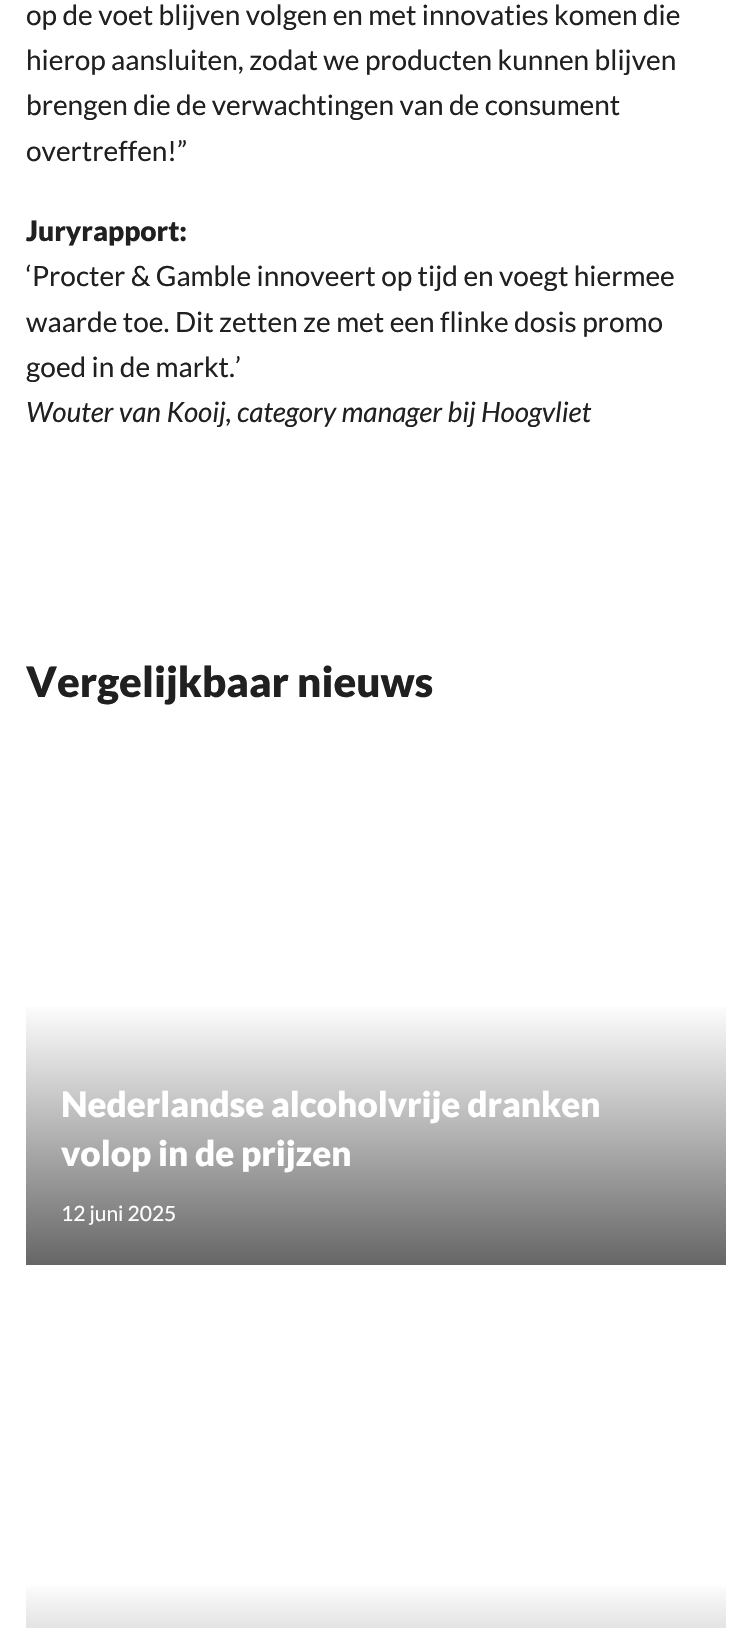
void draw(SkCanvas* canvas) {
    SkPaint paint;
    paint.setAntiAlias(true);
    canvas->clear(0xFFFFFFFF);
    SkFont font1(fontMgr->matchFamilyStyle("Lato", SkFontStyle::Normal()), 28);
    font1.setSubpixel(true);
    paint.setColor(0xFF202020);
    canvas->drawString("op de voet blijven volgen en met innovaties komen die", 26, 25, font1, paint);
    canvas->drawString("hierop aansluiten, zodat we producten kunnen blijven", 26, 70, font1, paint);
    canvas->drawString("brengen die de verwachtingen van de consument", 26, 115, font1, paint);
    canvas->drawString("overtreffen!”", 26, 161, font1, paint);
    SkFont font2(fontMgr->matchFamilyStyle("Lato", SkFontStyle(900, SkFontStyle::kNormal_Width, SkFontStyle::kUpright_Slant)), 28);
    font2.setSubpixel(true);
    canvas->drawString("Juryrapport:", 26, 241, font2, paint);
    canvas->drawString("‘Procter & Gamble innoveert op tijd en voegt hiermee", 26, 286, font1, paint);
    canvas->drawString("waarde toe. Dit zetten ze met een flinke dosis promo", 26, 332, font1, paint);
    canvas->drawString("goed in de markt.’", 26, 377, font1, paint);
    SkFont font3(fontMgr->matchFamilyStyle("Lato", SkFontStyle::Italic()), 28);
    font3.setSubpixel(true);
    canvas->drawString("Wouter van Kooij, category manager bij Hoogvliet", 26, 422, font3, paint);
    SkFont font4(fontMgr->matchFamilyStyle("Lato", SkFontStyle(900, SkFontStyle::kNormal_Width, SkFontStyle::kUpright_Slant)), 42);
    font4.setSubpixel(true);
    canvas->drawString("Vergelijkbaar nieuws", 26, 697, font4, paint);
    {
        const SkColor colors[] = {0xFFFFFFFF, 0xFFFFFFFF, 0xFF666666};
        const float stops[] = {0, 0.5f, 1};
        const SkPoint ends[] = {{376, 740}, {376, 1265}};
        paint.setShader(SkGradientShader::MakeLinear(ends, colors, stops, 3, SkTileMode::kClamp));
        paint.setAlpha(255);
    }
    canvas->drawRect(SkRect::MakeXYWH(26, 1007, 700, 258), paint);
    SkFont font5(fontMgr->matchFamilyStyle("Lato", SkFontStyle(900, SkFontStyle::kNormal_Width, SkFontStyle::kUpright_Slant)), 35);
    font5.setSubpixel(true);
    paint.setShader(nullptr);
    paint.setColor(0xFFFFFFFF);
    canvas->drawString("Nederlandse alcoholvrije dranken", 61, 1117, font5, paint);
    canvas->drawString("volop in de prijzen", 61, 1166, font5, paint);
    SkFont font6(fontMgr->matchFamilyStyle("Lato", SkFontStyle::Normal()), 21);
    font6.setSubpixel(true);
    canvas->drawString("12 juni 2025", 61, 1221, font6, paint);
    {
        const SkColor colors[] = {0xFFFFFFFF, 0xFFFFFFFF, 0xFF666666};
        const float stops[] = {0, 0.5f, 1};
        const SkPoint ends[] = {{376, 1318}, {376, 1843}};
        paint.setShader(SkGradientShader::MakeLinear(ends, colors, stops, 3, SkTileMode::kClamp));
        paint.setAlpha(255);
    }
    canvas->drawRect(SkRect::MakeXYWH(26, 1585, 700, 43), paint);
}
